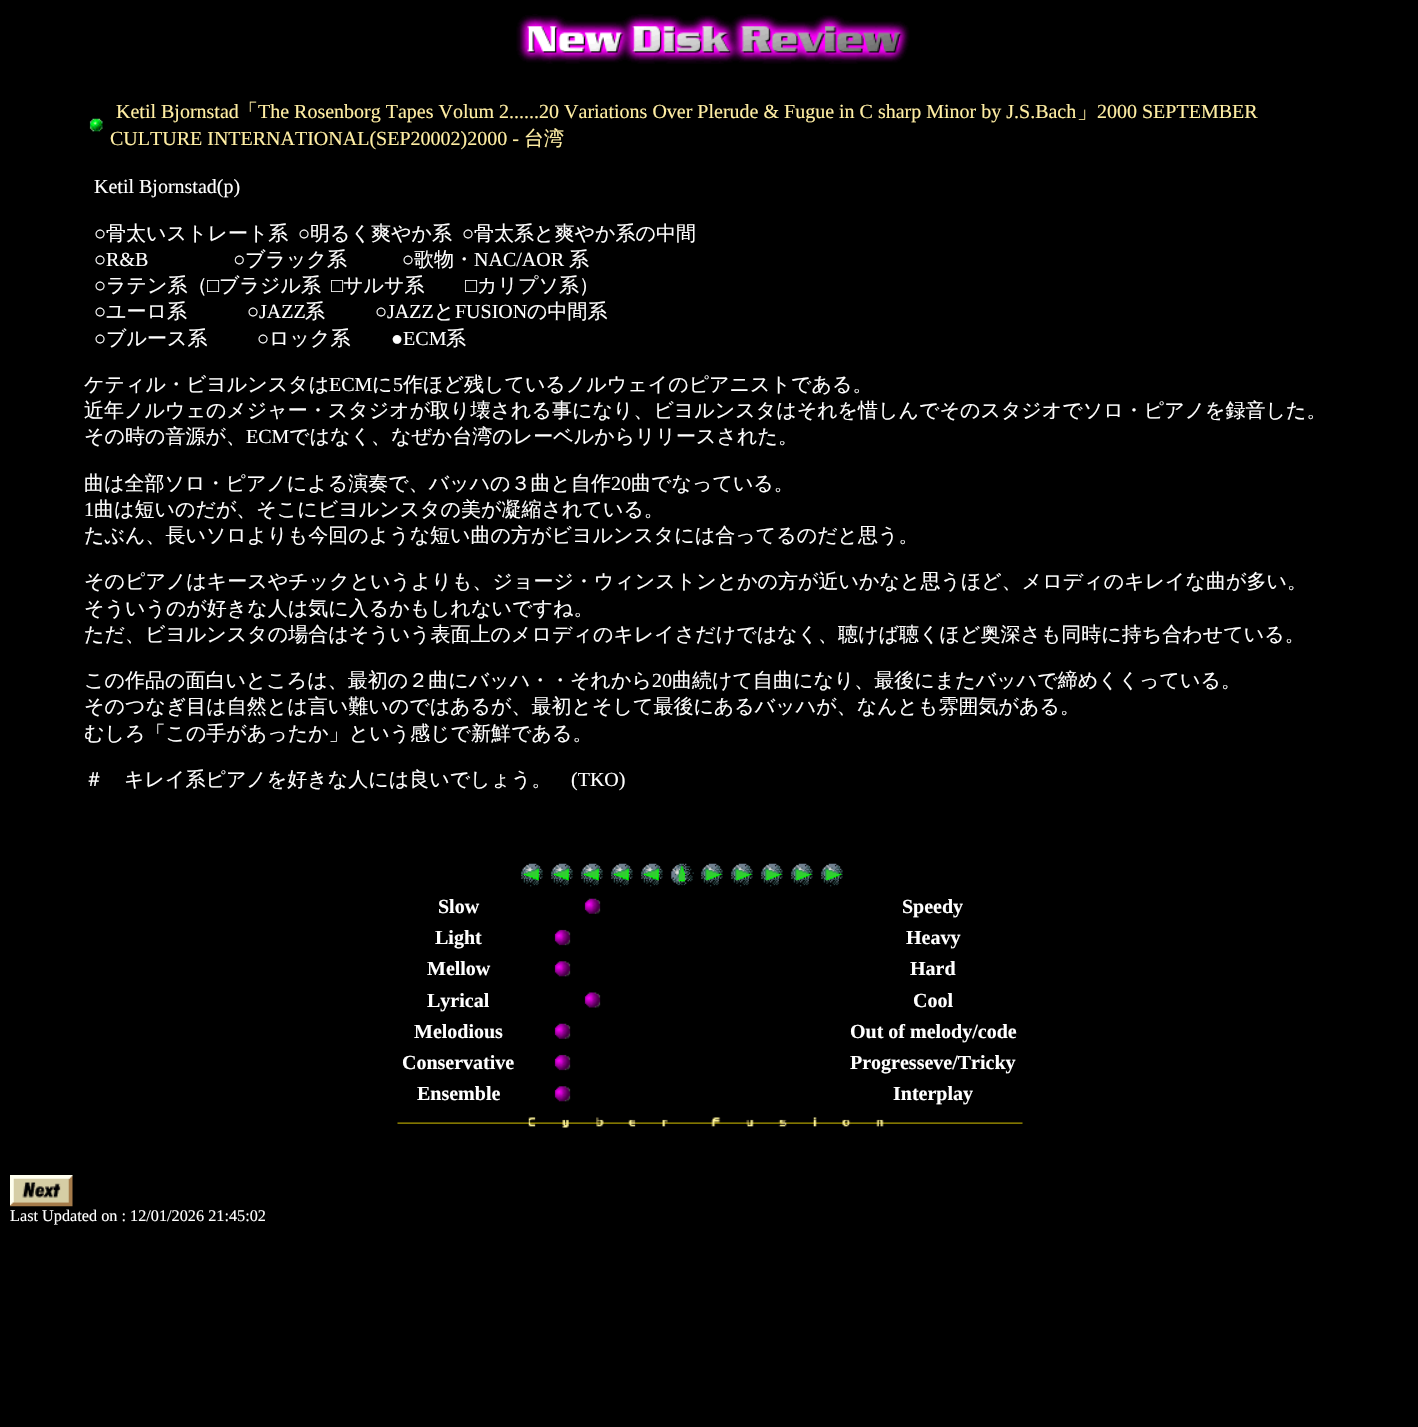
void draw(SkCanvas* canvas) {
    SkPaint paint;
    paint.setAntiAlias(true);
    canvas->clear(0xFF000000);
    canvas->drawImageRect(SkImages::DeferredFromEncodedData(SkData::MakeFromFileName("img1.png")), SkRect::MakeXYWH(516, 14, 394, 50), SkSamplingOptions());
    canvas->drawImageRect(SkImages::DeferredFromEncodedData(SkData::MakeFromFileName("img2.png")), SkRect::MakeXYWH(89, 118, 14, 14), SkSamplingOptions());
    SkFont font1(fontMgr->matchFamilyStyle("Liberation Serif", SkFontStyle::Normal()), 20);
    font1.setSubpixel(true);
    paint.setColor(0xFFFFEEA3);
    canvas->drawString("Ketil Bjornstad", 116, 118, font1, paint);
    SkFont font2(fontMgr->matchFamilyStyle("WenQuanYi Zen Hei", SkFontStyle(500, SkFontStyle::kNormal_Width, SkFontStyle::kUpright_Slant)), 20);
    font2.setSubpixel(true);
    canvas->drawString("「", 238, 118, font2, paint);
    canvas->drawString("The Rosenborg Tapes Volum 2......20 Variations Over Plerude & Fugue in C sharp Minor by J.S.Bach", 258, 118, font1, paint);
    canvas->drawString("」", 1077, 118, font2, paint);
    canvas->drawString("2000 SEPTEMBER", 1097, 118, font1, paint);
    canvas->drawString("CULTURE INTERNATIONAL(SEP20002)2000 -", 110, 145, font1, paint);
    canvas->drawString("台湾", 524, 145, font2, paint);
    paint.setColor(0xFFFFFFFF);
    canvas->drawString("Ketil Bjornstad(p)", 94, 193, font1, paint);
    canvas->drawString("○", 94, 240, font1, paint);
    canvas->drawString("骨太いストレート系", 106, 240, font2, paint);
    canvas->drawString("○", 298, 240, font1, paint);
    canvas->drawString("明るく爽やか系", 310, 240, font2, paint);
    canvas->drawString("○", 462, 240, font1, paint);
    canvas->drawString("骨太系と爽やか系の中間", 474, 240, font2, paint);
    canvas->drawString("○R&B                 ○", 94, 266, font1, paint);
    canvas->drawString("ブラック系", 245, 266, font2, paint);
    canvas->drawString("○", 402, 266, font1, paint);
    canvas->drawString("歌物・", 414, 266, font2, paint);
    canvas->drawString("NAC/AOR", 474, 266, font1, paint);
    canvas->drawString("系", 569, 266, font2, paint);
    canvas->drawString("○", 94, 292, font1, paint);
    canvas->drawString("ラテン系（", 106, 292, font2, paint);
    canvas->drawString("□", 207, 292, font1, paint);
    canvas->drawString("ブラジル系", 219, 292, font2, paint);
    canvas->drawString("□", 331, 292, font1, paint);
    canvas->drawString("サルサ系", 343, 292, font2, paint);
    canvas->drawString("□", 465, 292, font1, paint);
    canvas->drawString("カリプソ系）", 477, 292, font2, paint);
    canvas->drawString("○", 94, 318, font1, paint);
    canvas->drawString("ユーロ系", 106, 318, font2, paint);
    canvas->drawString("○JAZZ", 247, 318, font1, paint);
    canvas->drawString("系", 305, 318, font2, paint);
    canvas->drawString("○JAZZ", 375, 318, font1, paint);
    canvas->drawString("と", 434, 318, font2, paint);
    canvas->drawString("FUSION", 455, 318, font1, paint);
    canvas->drawString("の中間系", 527, 318, font2, paint);
    canvas->drawString("○", 94, 345, font1, paint);
    canvas->drawString("ブルース系", 106, 345, font2, paint);
    canvas->drawString("○", 257, 345, font1, paint);
    canvas->drawString("ロック系", 269, 345, font2, paint);
    canvas->drawString("●ECM", 391, 345, font1, paint);
    canvas->drawString("系", 446, 345, font2, paint);
    canvas->drawString("ケティル・ビヨルンスタは", 84, 391, font2, paint);
    canvas->drawString("ECM", 329, 391, font1, paint);
    canvas->drawString("に", 372, 391, font2, paint);
    canvas->drawString("5", 393, 391, font1, paint);
    canvas->drawString("作ほど残しているノルウェイのピアニストである。", 403, 391, font2, paint);
    canvas->drawString("近年ノルウェのメジャー・スタジオが取り壊される事になり、ビヨルンスタはそれを惜しんでそのスタジオでソロ・ピアノを録音した。", 84, 417, font2, paint);
    canvas->drawString("その時の音源が、", 84, 443, font2, paint);
    canvas->drawString("ECM", 246, 443, font1, paint);
    canvas->drawString("ではなく、なぜか台湾のレーベルからリリースされた。", 289, 443, font2, paint);
    canvas->drawString("曲は全部ソロ・ピアノによる演奏で、バッハの３曲と自作", 84, 490, font2, paint);
    canvas->drawString("20", 611, 490, font1, paint);
    canvas->drawString("曲でなっている。", 631, 490, font2, paint);
    canvas->drawString("1", 84, 516, font1, paint);
    canvas->drawString("曲は短いのだが、そこにビヨルンスタの美が凝縮されている。", 94, 516, font2, paint);
    canvas->drawString("たぶん、長いソロよりも今回のような短い曲の方がビヨルンスタには合ってるのだと思う。", 84, 542, font2, paint);
    canvas->drawString("そのピアノはキースやチックというよりも、ジョージ・ウィンストンとかの方が近いかなと思うほど、メロディのキレイな曲が多い。", 84, 588, font2, paint);
    canvas->drawString("そういうのが好きな人は気に入るかもしれないですね。", 84, 615, font2, paint);
    canvas->drawString("ただ、ビヨルンスタの場合はそういう表面上のメロディのキレイさだけではなく、聴けば聴くほど奥深さも同時に持ち合わせている。", 84, 641, font2, paint);
    canvas->drawString("この作品の面白いところは、最初の２曲にバッハ・・それから", 84, 687, font2, paint);
    canvas->drawString("20", 652, 687, font1, paint);
    canvas->drawString("曲続けて自曲になり、最後にまたバッハで締めくくっている。", 672, 687, font2, paint);
    canvas->drawString("そのつなぎ目は自然とは言い難いのではあるが、最初とそして最後にあるバッハが、なんとも雰囲気がある。", 84, 713, font2, paint);
    canvas->drawString("むしろ「この手があったか」という感じで新鮮である。", 84, 740, font2, paint);
    canvas->drawString("＃　キレイ系ピアノを好きな人には良いでしょう。", 84, 786, font2, paint);
    canvas->drawString("(TKO)", 571, 786, font1, paint);
    canvas->drawImageRect(SkImages::DeferredFromEncodedData(SkData::MakeFromFileName("img3.png")), SkRect::MakeXYWH(521, 863, 22, 24), SkSamplingOptions());
    canvas->drawImageRect(SkImages::DeferredFromEncodedData(SkData::MakeFromFileName("img3.png")), SkRect::MakeXYWH(551, 863, 22, 24), SkSamplingOptions());
    canvas->drawImageRect(SkImages::DeferredFromEncodedData(SkData::MakeFromFileName("img3.png")), SkRect::MakeXYWH(581, 863, 22, 24), SkSamplingOptions());
    canvas->drawImageRect(SkImages::DeferredFromEncodedData(SkData::MakeFromFileName("img4.png")), SkRect::MakeXYWH(611, 863, 22, 24), SkSamplingOptions());
    canvas->drawImageRect(SkImages::DeferredFromEncodedData(SkData::MakeFromFileName("img4.png")), SkRect::MakeXYWH(641, 863, 22, 24), SkSamplingOptions());
    canvas->drawImageRect(SkImages::DeferredFromEncodedData(SkData::MakeFromFileName("img5.png")), SkRect::MakeXYWH(671, 863, 23, 23), SkSamplingOptions());
    canvas->drawImageRect(SkImages::DeferredFromEncodedData(SkData::MakeFromFileName("img6.png")), SkRect::MakeXYWH(701, 863, 22, 24), SkSamplingOptions());
    canvas->drawImageRect(SkImages::DeferredFromEncodedData(SkData::MakeFromFileName("img6.png")), SkRect::MakeXYWH(731, 863, 22, 24), SkSamplingOptions());
    canvas->drawImageRect(SkImages::DeferredFromEncodedData(SkData::MakeFromFileName("img7.png")), SkRect::MakeXYWH(761, 863, 22, 24), SkSamplingOptions());
    canvas->drawImageRect(SkImages::DeferredFromEncodedData(SkData::MakeFromFileName("img8.png")), SkRect::MakeXYWH(791, 863, 22, 24), SkSamplingOptions());
    canvas->drawImageRect(SkImages::DeferredFromEncodedData(SkData::MakeFromFileName("img6.png")), SkRect::MakeXYWH(821, 863, 22, 24), SkSamplingOptions());
    SkFont font3(fontMgr->matchFamilyStyle("Liberation Serif", SkFontStyle::Bold()), 20);
    font3.setSubpixel(true);
    canvas->drawString("Slow", 438, 913, font3, paint);
    canvas->drawImageRect(SkImages::DeferredFromEncodedData(SkData::MakeFromFileName("img9.png")), SkRect::MakeXYWH(584, 898, 17, 16), SkSamplingOptions());
    canvas->drawString("Speedy", 902, 913, font3, paint);
    canvas->drawString("Light", 435, 944, font3, paint);
    canvas->drawImageRect(SkImages::DeferredFromEncodedData(SkData::MakeFromFileName("img10.png")), SkRect::MakeXYWH(554, 929, 17, 17), SkSamplingOptions());
    canvas->drawString("Heavy", 906, 944, font3, paint);
    canvas->drawString("Mellow", 427, 975, font3, paint);
    canvas->drawImageRect(SkImages::DeferredFromEncodedData(SkData::MakeFromFileName("img11.png")), SkRect::MakeXYWH(554, 961, 17, 16), SkSamplingOptions());
    canvas->drawString("Hard", 910, 975, font3, paint);
    canvas->drawString("Lyrical", 427, 1007, font3, paint);
    canvas->drawImageRect(SkImages::DeferredFromEncodedData(SkData::MakeFromFileName("img12.png")), SkRect::MakeXYWH(584, 992, 17, 16), SkSamplingOptions());
    canvas->drawString("Cool", 913, 1007, font3, paint);
    canvas->drawString("Melodious", 414, 1038, font3, paint);
    canvas->drawImageRect(SkImages::DeferredFromEncodedData(SkData::MakeFromFileName("img13.png")), SkRect::MakeXYWH(554, 1023, 17, 16), SkSamplingOptions());
    canvas->drawString("Out of melody/code", 850, 1038, font3, paint);
    canvas->drawString("Conservative", 402, 1069, font3, paint);
    canvas->drawImageRect(SkImages::DeferredFromEncodedData(SkData::MakeFromFileName("img10.png")), SkRect::MakeXYWH(554, 1054, 17, 17), SkSamplingOptions());
    canvas->drawString("Progresseve/Tricky", 850, 1069, font3, paint);
    canvas->drawString("Ensemble", 417, 1100, font3, paint);
    canvas->drawImageRect(SkImages::DeferredFromEncodedData(SkData::MakeFromFileName("img11.png")), SkRect::MakeXYWH(554, 1086, 17, 16), SkSamplingOptions());
    canvas->drawString("Interplay", 893, 1100, font3, paint);
    canvas->drawImageRect(SkImages::DeferredFromEncodedData(SkData::MakeFromFileName("img14.png")), SkRect::MakeXYWH(397, 1117, 626, 11), SkSamplingOptions());
    canvas->drawImageRect(SkImages::DeferredFromEncodedData(SkData::MakeFromFileName("img15.png")), SkRect::MakeXYWH(10, 1175, 63, 32), SkSamplingOptions());
    SkFont font4(fontMgr->matchFamilyStyle("Liberation Serif", SkFontStyle::Normal()), 16.25f);
    font4.setSubpixel(true);
    canvas->drawString("Last Updated on : 12/01/2026 21:45:02", 10, 1221, font4, paint);
}
